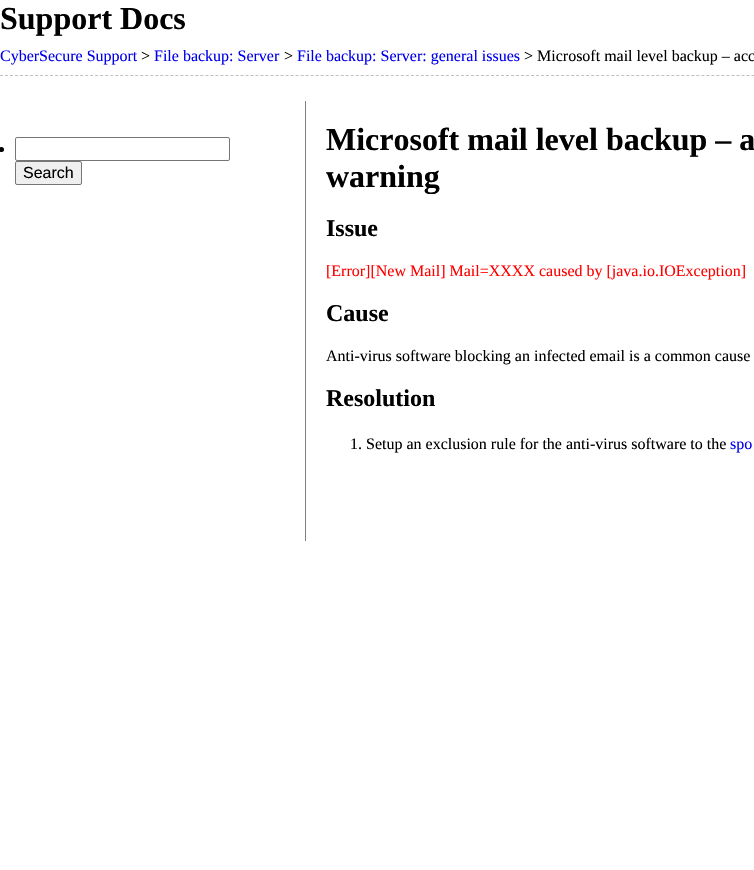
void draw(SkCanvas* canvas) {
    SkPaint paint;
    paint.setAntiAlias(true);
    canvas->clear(0xFFFFFFFF);
    SkFont font1(fontMgr->matchFamilyStyle("Liberation Serif", SkFontStyle::Bold()), 32);
    font1.setSubpixel(true);
    paint.setColor(0xFF000000);
    canvas->drawString("Support Docs", 0, 29, font1, paint);
    paint.setStyle(SkPaint::kStroke_Style);
    paint.setStrokeWidth(1);
    paint.setColor(0xFFC0C0C0);
    paint.setPathEffect(SkDashPathEffect::Make({{3, 2.01f}}, 0));
    canvas->drawPath(SkPathBuilder().moveTo(0, 75.5f).lineTo(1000, 75.5f).detach(), paint);
    paint.setPathEffect(nullptr);
    SkFont font2(fontMgr->matchFamilyStyle("Liberation Serif", SkFontStyle::Normal()), 16);
    font2.setSubpixel(true);
    paint.setStyle(SkPaint::kFill_Style);
    paint.setColor(0xFF0000EE);
    canvas->drawString("CyberSecure Support", 0, 61, font2, paint);
    paint.setColor(0xFF000000);
    canvas->drawString(">", 141, 61, font2, paint);
    paint.setColor(0xFF0000EE);
    canvas->drawString("File backup: Server", 154, 61, font2, paint);
    paint.setColor(0xFF000000);
    canvas->drawString(">", 284, 61, font2, paint);
    paint.setColor(0xFF0000EE);
    canvas->drawString("File backup: Server: general issues", 297, 61, font2, paint);
    paint.setColor(0xFF000000);
    canvas->drawString("> Microsoft mail level backup – acc", 524, 61, font2, paint);
    canvas->drawCircle(1.5f, 149.5f, 2.5f, paint);
    paint.setStyle(SkPaint::kStroke_Style);
    paint.setColor(0xFF767676);
    canvas->drawRoundRect(SkRect::MakeXYWH(15.5f, 137.5f, 214, 23), 1.5f, 1.5f, paint);
    paint.setStyle(SkPaint::kFill_Style);
    paint.setColor(0xFFEFEFEF);
    canvas->drawRoundRect(SkRect::MakeXYWH(15.5f, 161.5f, 66, 23), 1.5f, 1.5f, paint);
    paint.setStyle(SkPaint::kStroke_Style);
    paint.setColor(0xFF767676);
    canvas->drawRoundRect(SkRect::MakeXYWH(15.5f, 161.5f, 66, 23), 1.5f, 1.5f, paint);
    SkFont font3(fontMgr->matchFamilyStyle("Liberation Sans", SkFontStyle::Normal()), 16);
    font3.setSubpixel(true);
    paint.setStyle(SkPaint::kFill_Style);
    paint.setColor(0xFF000000);
    canvas->drawString("Search", 23, 178, font3, paint);
    paint.setColor(0xFF808080);
    canvas->drawRect(SkRect::MakeXYWH(305, 101, 1, 440), paint);
    paint.setColor(0xFF000000);
    canvas->drawString("Microsoft mail level backup – a", 326, 150, font1, paint);
    canvas->drawString("warning", 326, 187, font1, paint);
    SkFont font4(fontMgr->matchFamilyStyle("Liberation Serif", SkFontStyle::Bold()), 24);
    font4.setSubpixel(true);
    canvas->drawString("Issue", 326, 236, font4, paint);
    paint.setColor(0xFFFF0000);
    canvas->drawString("[Error][New Mail] Mail=XXXX caused by [java.io.IOException]", 326, 276, font2, paint);
    paint.setColor(0xFF000000);
    canvas->drawString("Cause", 326, 321, font4, paint);
    canvas->drawString("Anti-virus software blocking an infected email is a common cause", 326, 361, font2, paint);
    canvas->drawString("Resolution", 326, 406, font4, paint);
    canvas->drawString("1. Setup an exclusion rule for the anti-virus software to the", 350, 449, font2, paint);
    paint.setColor(0xFF0000EE);
    canvas->drawString("spo", 730, 449, font2, paint);
}
